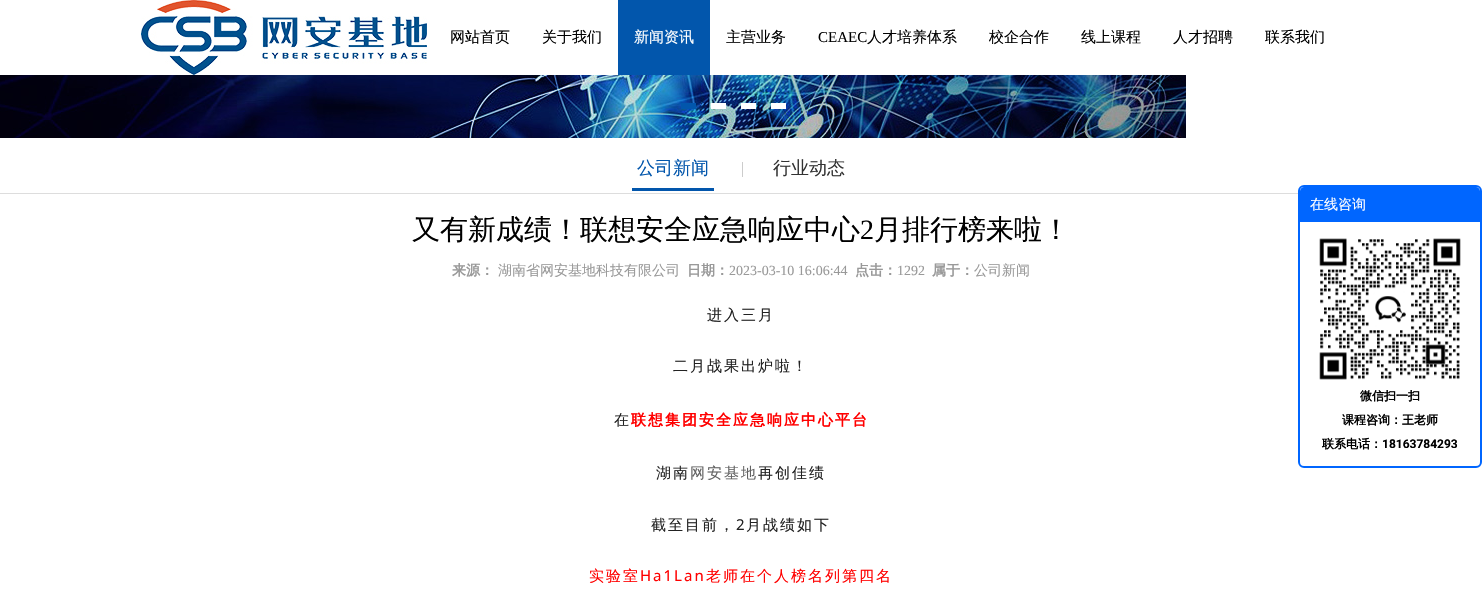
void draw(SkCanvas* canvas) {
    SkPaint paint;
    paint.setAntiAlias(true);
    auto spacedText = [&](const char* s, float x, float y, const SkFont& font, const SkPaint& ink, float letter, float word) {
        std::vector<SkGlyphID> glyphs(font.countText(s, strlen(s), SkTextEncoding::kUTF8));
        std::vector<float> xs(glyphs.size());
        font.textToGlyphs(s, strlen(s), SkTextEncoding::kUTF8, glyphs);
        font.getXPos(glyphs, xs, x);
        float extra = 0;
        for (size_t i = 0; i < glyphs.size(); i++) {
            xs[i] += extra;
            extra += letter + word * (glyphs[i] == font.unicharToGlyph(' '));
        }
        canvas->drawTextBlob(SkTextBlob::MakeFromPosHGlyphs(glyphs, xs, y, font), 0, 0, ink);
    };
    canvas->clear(0xFFFFFFFF);
    canvas->drawImageRect(SkImages::DeferredFromEncodedData(SkData::MakeFromFileName("img1.png")), SkRect::MakeXYWH(141, 0, 286, 75), SkSamplingOptions());
    SkFont font1(fontMgr->matchFamilyStyle("WenQuanYi Zen Hei", SkFontStyle(500, SkFontStyle::kNormal_Width, SkFontStyle::kUpright_Slant)), 15);
    font1.setSubpixel(true);
    paint.setColor(0xFF000000);
    canvas->drawString("网站首页", 450, 42, font1, paint);
    canvas->drawString("关于我们", 542, 42, font1, paint);
    paint.setColor(0xFF0256AC);
    canvas->drawRect(SkRect::MakeXYWH(618, 0, 92, 75), paint);
    paint.setColor(0xFFFFFFFF);
    canvas->drawString("新闻资讯", 634, 42, font1, paint);
    paint.setColor(0xFF000000);
    canvas->drawString("主营业务", 726, 42, font1, paint);
    SkFont font2(fontMgr->matchFamilyStyle("Liberation Serif", SkFontStyle::Normal()), 15);
    font2.setSubpixel(true);
    canvas->drawString("CEAEC", 818, 42, font2, paint);
    canvas->drawString("人才培养体系", 867, 42, font1, paint);
    canvas->drawString("校企合作", 989, 42, font1, paint);
    canvas->drawString("线上课程", 1081, 42, font1, paint);
    canvas->drawString("人才招聘", 1173, 42, font1, paint);
    canvas->drawString("联系我们", 1265, 42, font1, paint);
    canvas->drawImageRect(SkImages::DeferredFromEncodedData(SkData::MakeFromFileName("img2.png")), SkRect::MakeXYWH(0, 75, 1186, 63), SkSamplingOptions());
    paint.setColor(0xFF0256AC);
    canvas->drawRect(SkRect::MakeXYWH(681, 103, 15, 6), paint);
    paint.setColor(0xFFFFFFFF);
    canvas->drawRect(SkRect::MakeXYWH(711, 103, 15, 6), paint);
    canvas->drawRect(SkRect::MakeXYWH(741, 103, 15, 6), paint);
    canvas->drawRect(SkRect::MakeXYWH(771, 103, 15, 6), paint);
    paint.setColor(0xFFDDDDDD);
    canvas->drawRect(SkRect::MakeXYWH(0, 193, 1298, 1), paint);
    SkFont font3(fontMgr->matchFamilyStyle("WenQuanYi Zen Hei", SkFontStyle(500, SkFontStyle::kNormal_Width, SkFontStyle::kUpright_Slant)), 18);
    font3.setSubpixel(true);
    paint.setColor(0xFF0256AC);
    canvas->drawString("公司新闻", 637, 174, font3, paint);
    canvas->drawRect(SkRect::MakeXYWH(632, 188, 82, 3), paint);
    paint.setColor(0xFF333333);
    canvas->drawString("行业动态", 773, 174, font3, paint);
    paint.setColor(0xFFCCCCCC);
    canvas->drawRect(SkRect::MakeXYWH(742, 162, 1, 15), paint);
    SkFont font4(fontMgr->matchFamilyStyle("WenQuanYi Zen Hei", SkFontStyle(500, SkFontStyle::kNormal_Width, SkFontStyle::kUpright_Slant)), 28);
    font4.setSubpixel(true);
    paint.setColor(0xFF000000);
    canvas->drawString("又有新成绩！联想安全应急响应中心", 412, 239, font4, paint);
    SkFont font5(fontMgr->matchFamilyStyle("Liberation Serif", SkFontStyle::Normal()), 28);
    font5.setSubpixel(true);
    canvas->drawString("2", 860, 239, font5, paint);
    canvas->drawString("月排行榜来啦！", 874, 239, font4, paint);
    SkFont font6(fontMgr->matchFamilyStyle("WenQuanYi Zen Hei", SkFontStyle::Bold()), 14);
    font6.setSubpixel(true);
    paint.setColor(0xFF999999);
    canvas->drawString("来源：", 452, 275, font6, paint);
    SkFont font7(fontMgr->matchFamilyStyle("WenQuanYi Zen Hei", SkFontStyle(500, SkFontStyle::kNormal_Width, SkFontStyle::kUpright_Slant)), 14);
    font7.setSubpixel(true);
    canvas->drawString("湖南省网安基地科技有限公司", 498, 275, font7, paint);
    canvas->drawString("日期：", 687, 275, font6, paint);
    SkFont font8(fontMgr->matchFamilyStyle("Liberation Serif", SkFontStyle::Normal()), 14);
    font8.setSubpixel(true);
    canvas->drawString("2023-03-10 16:06:44", 729, 275, font8, paint);
    canvas->drawString("点击：", 855, 275, font6, paint);
    canvas->drawString("1292", 897, 275, font8, paint);
    canvas->drawString("属于：", 932, 275, font6, paint);
    canvas->drawString("公司新闻", 974, 275, font7, paint);
    paint.setColor(0xFF222222);
    spacedText("进入三月", 707, 320, font1, paint, 2, 0);
    spacedText("二月战果出炉啦！", 673, 371, font1, paint, 2, 0);
    spacedText("在", 614, 425, font1, paint, 2, 0);
    SkFont font9(fontMgr->matchFamilyStyle("WenQuanYi Zen Hei", SkFontStyle::Bold()), 15);
    font9.setSubpixel(true);
    paint.setColor(0xFFFF0000);
    spacedText("联想集团安全应急响应中心平台", 631, 425, font9, paint, 2, 0);
    paint.setColor(0xFF222222);
    spacedText("湖南", 656, 478, font1, paint, 2, 0);
    paint.setColor(0xFF626262);
    spacedText("网安基地", 690, 478, font1, paint, 2, 0);
    paint.setColor(0xFF222222);
    spacedText("再创佳绩", 758, 478, font1, paint, 2, 0);
    spacedText("截至目前，", 651, 530, font1, paint, 2, 0);
    SkFont font10(fontMgr->matchFamilyStyle("Noto Sans", SkFontStyle::Normal()), 15);
    font10.setSubpixel(true);
    spacedText("2", 736, 530, font10, paint, 2, 0);
    spacedText("月战绩如下", 746, 530, font1, paint, 2, 0);
    paint.setColor(0xFFFF0000);
    spacedText("实验室", 589, 581, font1, paint, 2, 0);
    spacedText("Ha1Lan", 640, 581, font10, paint, 2, 0);
    spacedText("老师在个人榜名列第四名", 706, 581, font1, paint, 2, 0);
    paint.setStyle(SkPaint::kStroke_Style);
    paint.setStrokeWidth(2);
    paint.setColor(0xFF0066FF);
    canvas->drawRoundRect(SkRect::MakeXYWH(1299, 186, 182, 281), 5, 5, paint);
    paint.setStyle(SkPaint::kFill_Style);
    canvas->drawPath(SkPathBuilder().moveTo(1304, 187).lineTo(1476, 187).cubicTo(1478, 187, 1480, 189, 1480, 191).lineTo(1480, 222).lineTo(1300, 222).lineTo(1300, 191).cubicTo(1300, 189, 1302, 187, 1304, 187).close().detach(), paint);
    paint.setColor(0xFFFFFFFF);
    canvas->drawString("在线咨询", 1310, 209, font7, paint);
    canvas->drawImageRect(SkImages::DeferredFromEncodedData(SkData::MakeFromFileName("img3.png")), SkRect::MakeXYWH(1319, 238, 142, 142), SkSamplingOptions());
    SkFont font11(fontMgr->matchFamilyStyle("WenQuanYi Zen Hei", SkFontStyle::Bold()), 12);
    font11.setSubpixel(true);
    paint.setColor(0xFF000000);
    canvas->drawString("微信扫一扫", 1360, 400, font11, paint);
    canvas->drawString("课程咨询：王老师", 1342, 424, font11, paint);
    canvas->drawString("联系电话：", 1322, 448, font11, paint);
    SkFont font12(fontMgr->matchFamilyStyle("Roboto", SkFontStyle::Bold()), 12);
    font12.setSubpixel(true);
    canvas->drawString("18163784293", 1382, 448, font12, paint);
}
